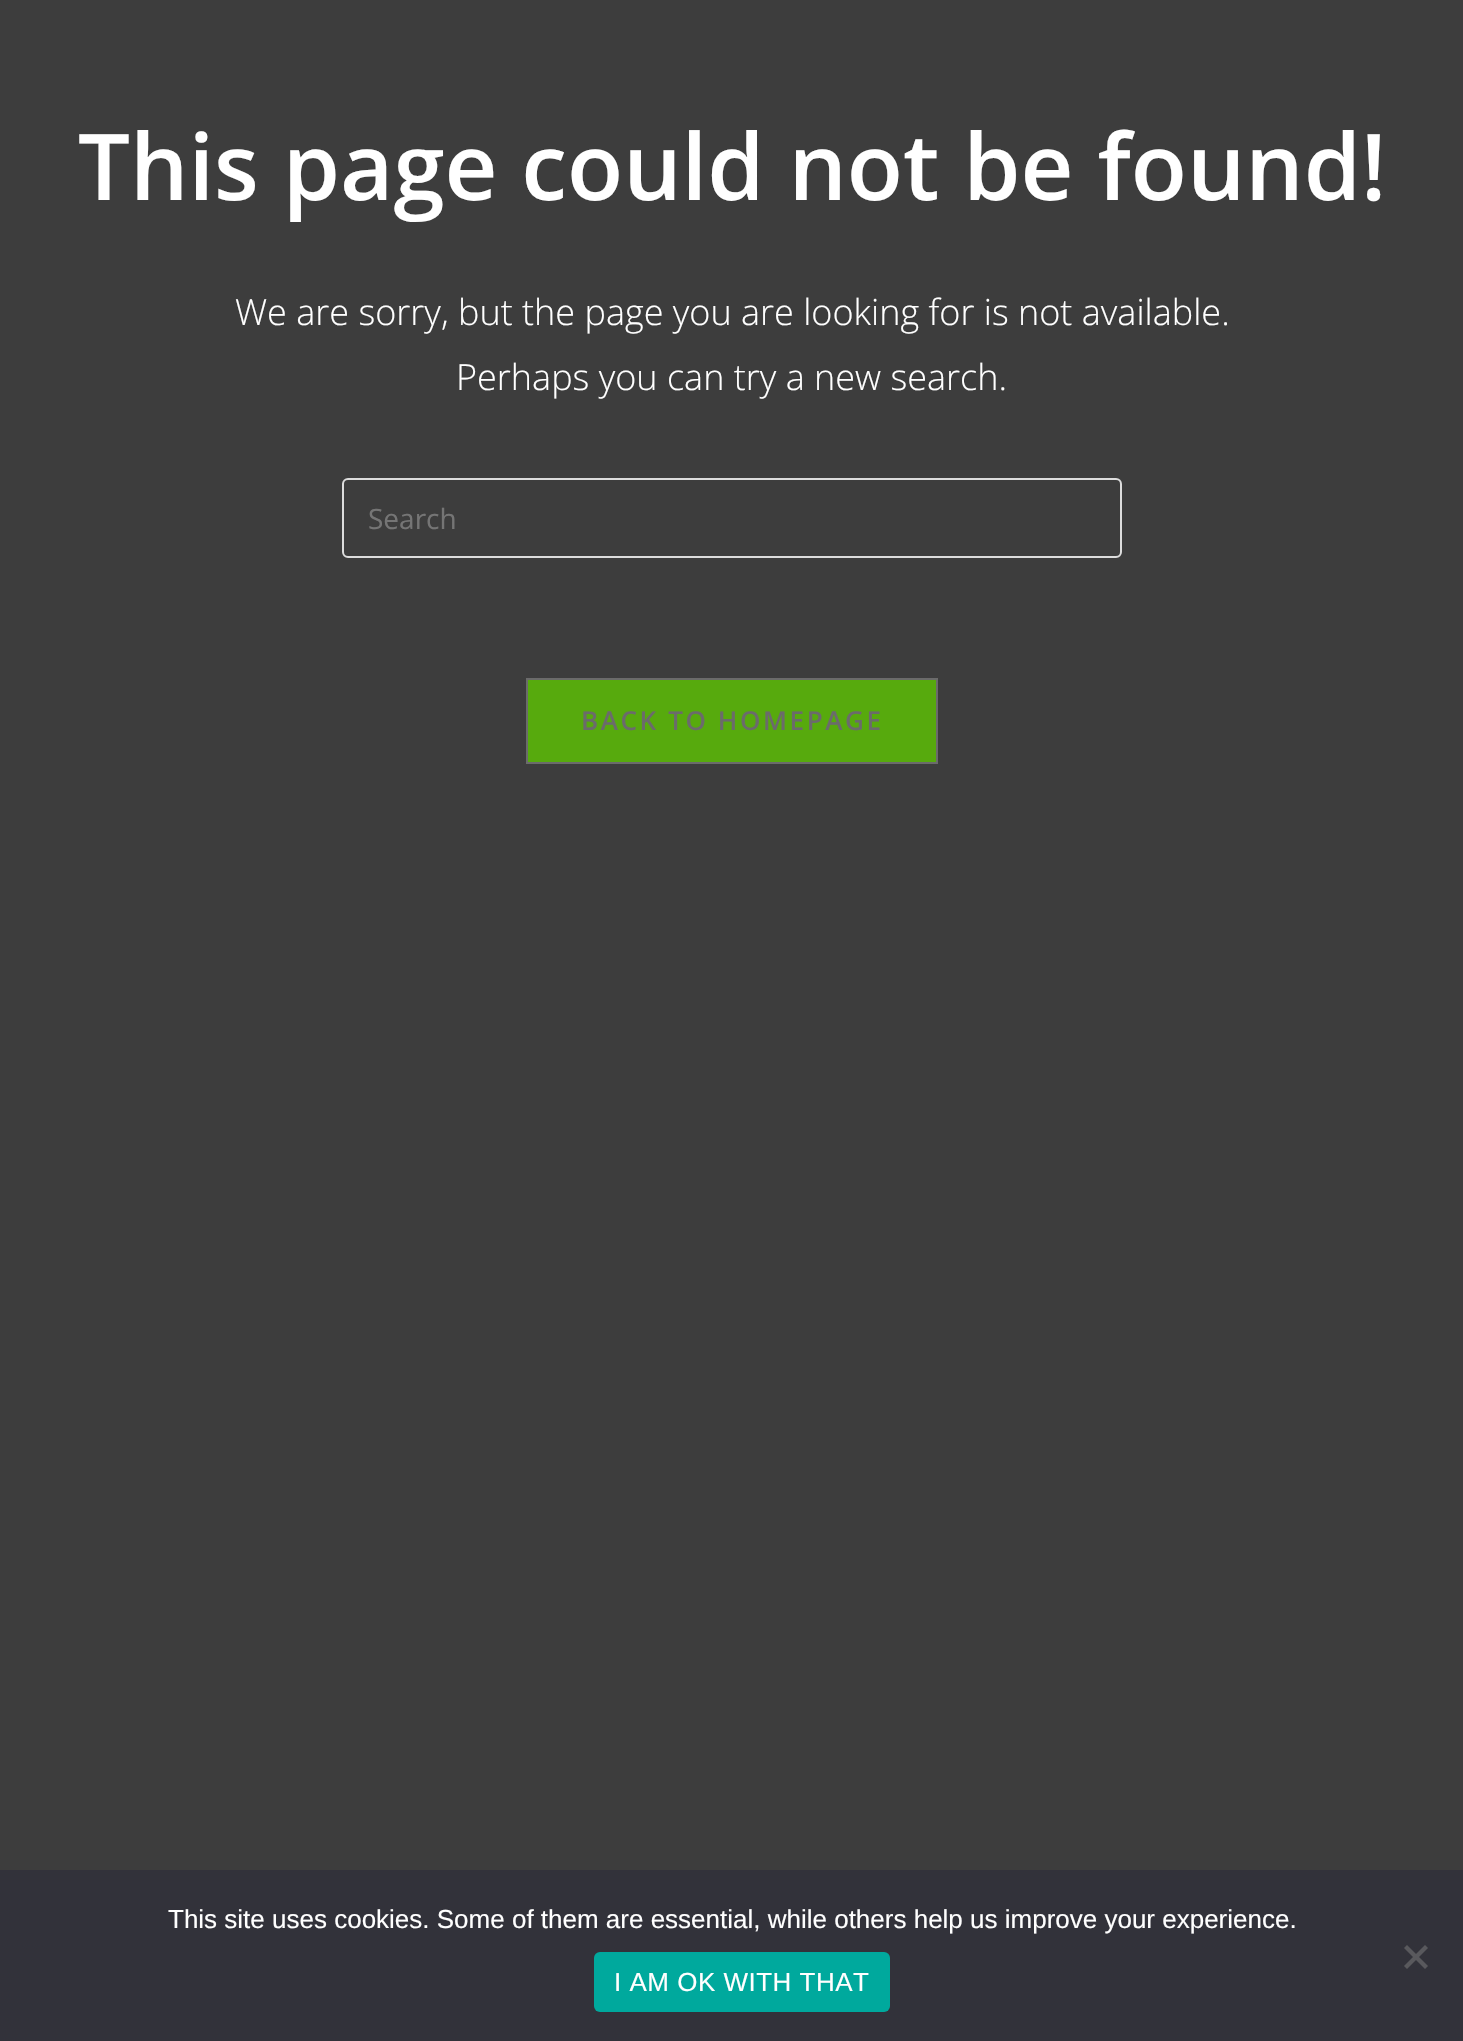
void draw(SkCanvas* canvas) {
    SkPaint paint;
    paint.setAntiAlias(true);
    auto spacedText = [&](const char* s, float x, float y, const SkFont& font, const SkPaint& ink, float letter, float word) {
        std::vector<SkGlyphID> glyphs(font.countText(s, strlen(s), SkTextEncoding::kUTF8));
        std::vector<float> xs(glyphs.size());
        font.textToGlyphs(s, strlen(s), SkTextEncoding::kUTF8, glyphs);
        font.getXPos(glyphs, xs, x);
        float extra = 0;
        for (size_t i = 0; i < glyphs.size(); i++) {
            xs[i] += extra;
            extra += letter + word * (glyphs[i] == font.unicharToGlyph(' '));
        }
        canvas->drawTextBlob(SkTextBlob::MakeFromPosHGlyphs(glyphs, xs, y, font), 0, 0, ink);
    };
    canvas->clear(0xFF3D3D3D);
    SkFont font1(fontMgr->matchFamilyStyle("Open Sans", SkFontStyle(600, SkFontStyle::kNormal_Width, SkFontStyle::kUpright_Slant)), 92);
    font1.setSubpixel(true);
    paint.setColor(0xFFFFFFFF);
    canvas->drawString("This page could not be found!", 78, 200, font1, paint);
    SkFont font2(fontMgr->matchFamilyStyle("Open Sans", SkFontStyle(300, SkFontStyle::kNormal_Width, SkFontStyle::kUpright_Slant)), 36);
    font2.setSubpixel(true);
    canvas->drawString("We are sorry, but the page you are looking for is not available.", 235, 325, font2, paint);
    canvas->drawString("Perhaps you can try a new search.", 456, 390, font2, paint);
    paint.setStyle(SkPaint::kStroke_Style);
    paint.setStrokeWidth(2);
    paint.setColor(0xFFDDDDDD);
    canvas->drawRoundRect(SkRect::MakeXYWH(343, 479, 778, 78), 5, 5, paint);
    SkFont font3(fontMgr->matchFamilyStyle("Open Sans", SkFontStyle::Normal()), 28);
    font3.setSubpixel(true);
    paint.setStyle(SkPaint::kFill_Style);
    paint.setColor(0xFF757575);
    canvas->drawString("Search", 368, 529, font3, paint);
    paint.setColor(0xFF57AA0D);
    canvas->drawRect(SkRect::MakeXYWH(527, 679, 410, 84), paint);
    paint.setStyle(SkPaint::kStroke_Style);
    paint.setColor(0xFF6B6B6B);
    canvas->drawRect(SkRect::MakeXYWH(527, 679, 410, 84), paint);
    SkFont font4(fontMgr->matchFamilyStyle("Open Sans", SkFontStyle(600, SkFontStyle::kNormal_Width, SkFontStyle::kUpright_Slant)), 26);
    font4.setSubpixel(true);
    paint.setStyle(SkPaint::kFill_Style);
    spacedText("BACK TO HOMEPAGE", 581, 730, font4, paint, 2.6f, 0);
    paint.setColor(0xFF32323A);
    canvas->drawRect(SkRect::MakeXYWH(0, 1870, 1463, 171), paint);
    SkFont font5(fontMgr->matchFamilyStyle("Liberation Sans", SkFontStyle::Normal()), 26);
    font5.setSubpixel(true);
    paint.setColor(0xFFFFFFFF);
    canvas->drawString("This site uses cookies. Some of them are essential, while others help us improve your experience.", 168, 1928, font5, paint);
    paint.setColor(0xFF59595D);
    canvas->drawPath(SkPathBuilder().moveTo(1425, 1945).lineTo(1428, 1948).lineTo(1407, 1969).lineTo(1404, 1966).close().detach(), paint);
    canvas->drawPath(SkPathBuilder().moveTo(1404, 1948).lineTo(1407, 1945).lineTo(1428, 1966).lineTo(1425, 1969).close().detach(), paint);
    paint.setColor(0xFF00A99D);
    canvas->drawRoundRect(SkRect::MakeXYWH(594, 1952, 296, 60), 6, 6, paint);
    paint.setColor(0xFFFFFFFF);
    spacedText("I AM OK WITH THAT", 614, 1991, font5, paint, 0.5f, 0);
}
